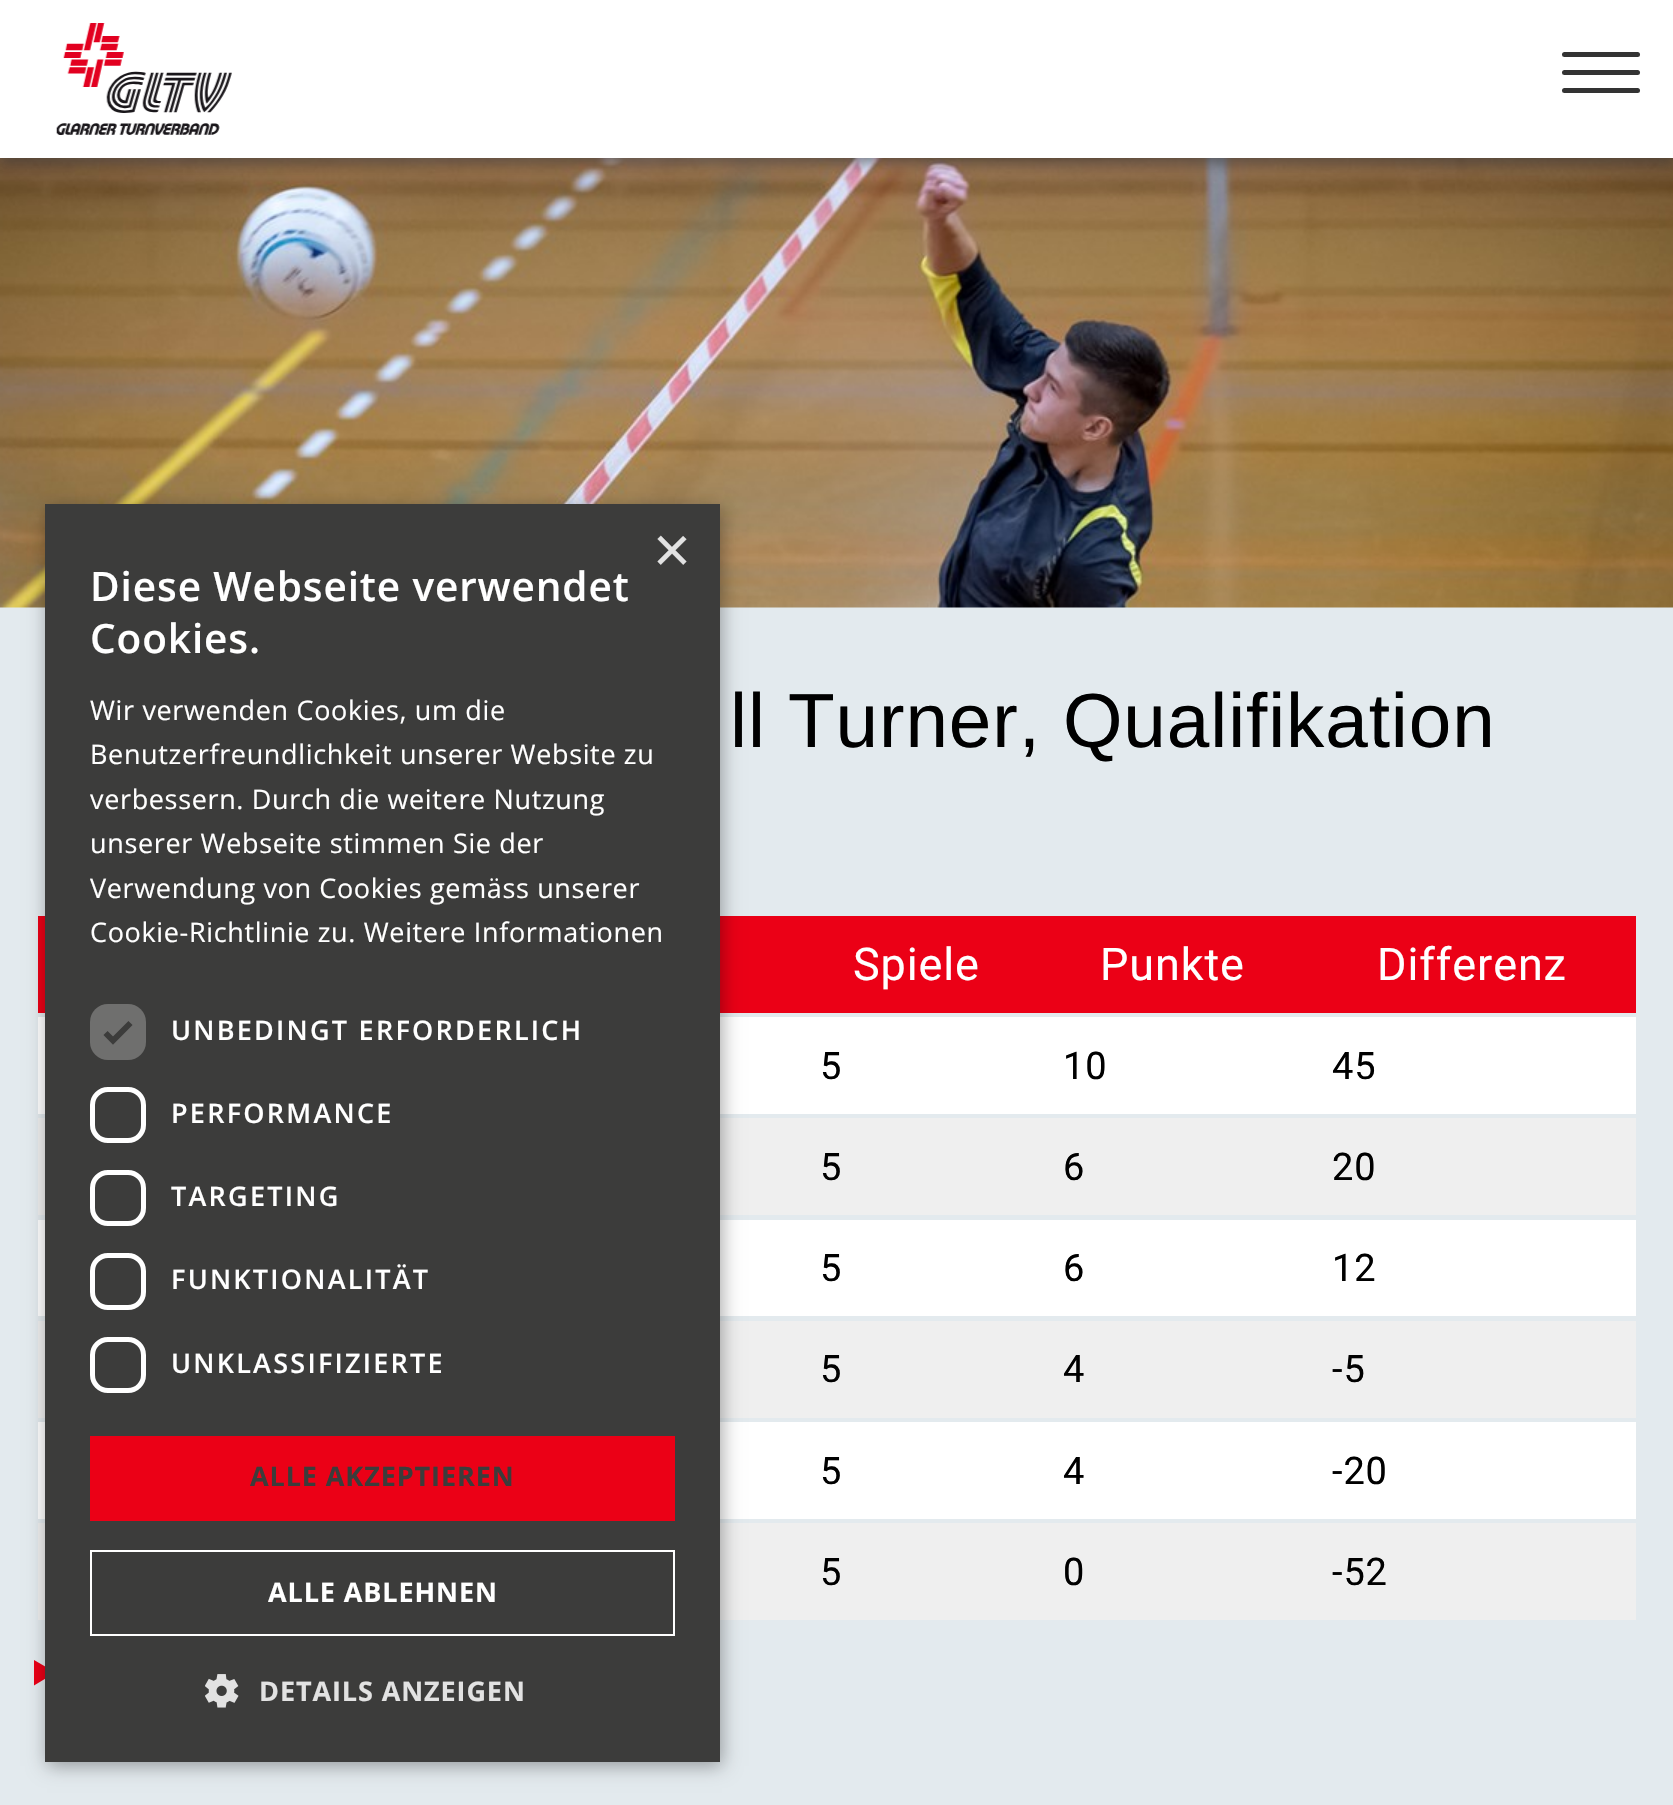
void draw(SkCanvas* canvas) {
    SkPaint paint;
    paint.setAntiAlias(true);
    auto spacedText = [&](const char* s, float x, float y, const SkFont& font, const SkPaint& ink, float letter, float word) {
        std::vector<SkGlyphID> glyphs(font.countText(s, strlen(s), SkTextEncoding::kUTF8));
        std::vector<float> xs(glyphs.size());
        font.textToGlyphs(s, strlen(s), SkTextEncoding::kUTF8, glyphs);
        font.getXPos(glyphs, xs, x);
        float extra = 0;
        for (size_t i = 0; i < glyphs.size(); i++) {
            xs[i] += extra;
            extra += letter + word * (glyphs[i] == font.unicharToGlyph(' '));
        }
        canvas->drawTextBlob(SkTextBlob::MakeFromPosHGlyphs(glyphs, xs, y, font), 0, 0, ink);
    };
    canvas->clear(0xFFE3EAEE);
    canvas->drawImageRect(SkImages::DeferredFromEncodedData(SkData::MakeFromFileName("img3.png")), SkRect::MakeXYWH(0, 158, 1673, 450), SkSamplingOptions());
    paint.setColor(0xFFEB0016);
    canvas->drawRect(SkRect::MakeXYWH(38, 916, 1598, 97), paint);
    paint.setColor(0xFFFFFFFF);
    canvas->drawRect(SkRect::MakeXYWH(38, 1017, 1598, 97), paint);
    paint.setColor(0xFFEFEFEF);
    canvas->drawRect(SkRect::MakeXYWH(38, 1118, 1598, 97), paint);
    paint.setColor(0xFFFFFFFF);
    canvas->drawRect(SkRect::MakeXYWH(38, 1220, 1598, 96), paint);
    paint.setColor(0xFFEFEFEF);
    canvas->drawRect(SkRect::MakeXYWH(38, 1321, 1598, 97), paint);
    paint.setColor(0xFFFFFFFF);
    canvas->drawRect(SkRect::MakeXYWH(38, 1422, 1598, 97), paint);
    paint.setColor(0xFFEFEFEF);
    canvas->drawRect(SkRect::MakeXYWH(38, 1523, 1598, 97), paint);
    paint.setColor(0xFFEB0016);
    canvas->drawPath(SkPathBuilder().moveTo(34, 1660).lineTo(55.5f, 1672.5f).lineTo(34, 1685.5f).close().detach(), paint);
    paint.setColor(0x59000000);
    paint.setMaskFilter(SkMaskFilter::MakeBlur(kNormal_SkBlurStyle, 9));
    canvas->drawRect(SkRect::MakeXYWH(47, 509, 675, 1257), paint);
    paint.setMaskFilter(nullptr);
    paint.setColor(0xFF3C3C3B);
    canvas->drawRect(SkRect::MakeXYWH(45, 504, 675, 1258), paint);
    SkFont font1(fontMgr->matchFamilyStyle("Liberation Sans", SkFontStyle::Normal()), 65);
    font1.setSubpixel(true);
    paint.setColor(0xFFE2E2E2);
    canvas->drawString("×", 653, 572, font1, paint);
    SkFont font2(fontMgr->matchFamilyStyle("Open Sans", SkFontStyle(600, SkFontStyle::kNormal_Width, SkFontStyle::kUpright_Slant)), 40.5f);
    font2.setSubpixel(true);
    paint.setColor(0xFFFFFFFF);
    spacedText("Diese Webseite verwendet", 90, 601, font2, paint, 0.9f, 0);
    spacedText("Cookies.", 90, 653, font2, paint, 0.9f, 0);
    SkFont font3(fontMgr->matchFamilyStyle("Open Sans", SkFontStyle::Normal()), 27);
    font3.setSubpixel(true);
    spacedText("Wir verwenden Cookies, um die", 90, 720, font3, paint, 0.65f, 0);
    spacedText("Benutzerfreundlichkeit unserer Website zu", 90, 764, font3, paint, 0.65f, 0);
    spacedText("verbessern. Durch die weitere Nutzung", 90, 809, font3, paint, 0.65f, 0);
    spacedText("unserer Webseite stimmen Sie der", 90, 853, font3, paint, 0.65f, 0);
    spacedText("Verwendung von Cookies gemäss unserer", 90, 898, font3, paint, 0.65f, 0);
    spacedText("Cookie-Richtlinie zu. Weitere Informationen", 90, 942, font3, paint, 0.65f, 0);
    paint.setColor(0xFF6F6F6E);
    canvas->drawRoundRect(SkRect::MakeXYWH(90, 1004, 56, 56), 18, 18, paint);
    paint.setStyle(SkPaint::kStroke_Style);
    paint.setStrokeWidth(5.9f);
    paint.setColor(0xFF3C3C3B);
    canvas->drawPath(SkPathBuilder().moveTo(105.5f, 1033).lineTo(113, 1040.5f).lineTo(130.5f, 1023).detach(), paint);
    SkFont font4(fontMgr->matchFamilyStyle("Open Sans", SkFontStyle(600, SkFontStyle::kNormal_Width, SkFontStyle::kUpright_Slant)), 27);
    font4.setSubpixel(true);
    paint.setStyle(SkPaint::kFill_Style);
    paint.setColor(0xFFFFFFFF);
    spacedText("UNBEDINGT ERFORDERLICH", 171, 1040, font4, paint, 2.25f, 0);
    paint.setStyle(SkPaint::kStroke_Style);
    paint.setStrokeWidth(5);
    canvas->drawRoundRect(SkRect::MakeXYWH(92.5f, 1089.5f, 51, 51), 15.5f, 15.5f, paint);
    paint.setStyle(SkPaint::kFill_Style);
    spacedText("PERFORMANCE", 171, 1123, font4, paint, 2.25f, 0);
    paint.setStyle(SkPaint::kStroke_Style);
    canvas->drawRoundRect(SkRect::MakeXYWH(92.5f, 1172.5f, 51, 51), 15.5f, 15.5f, paint);
    paint.setStyle(SkPaint::kFill_Style);
    spacedText("TARGETING", 171, 1206, font4, paint, 2.25f, 0);
    paint.setStyle(SkPaint::kStroke_Style);
    canvas->drawRoundRect(SkRect::MakeXYWH(92.5f, 1255.5f, 51, 52), 15.5f, 15.5f, paint);
    paint.setStyle(SkPaint::kFill_Style);
    spacedText("FUNKTIONALITÄT", 171, 1289, font4, paint, 2.25f, 0);
    paint.setStyle(SkPaint::kStroke_Style);
    canvas->drawRoundRect(SkRect::MakeXYWH(92.5f, 1339.5f, 51, 51), 15.5f, 15.5f, paint);
    paint.setStyle(SkPaint::kFill_Style);
    spacedText("UNKLASSIFIZIERTE", 171, 1373, font4, paint, 2.25f, 0);
    paint.setColor(0xFFEB0016);
    canvas->drawRect(SkRect::MakeXYWH(90, 1436, 585, 85), paint);
    SkFont font5(fontMgr->matchFamilyStyle("Open Sans", SkFontStyle::Bold()), 27);
    font5.setSubpixel(true);
    paint.setColor(0xFF3C3C3B);
    spacedText("ALLE AKZEPTIEREN", 250, 1486, font5, paint, 0.9f, 0);
    paint.setStyle(SkPaint::kStroke_Style);
    paint.setStrokeWidth(2);
    paint.setColor(0xFFFFFFFF);
    canvas->drawRect(SkRect::MakeXYWH(91, 1551, 583, 84), paint);
    paint.setStyle(SkPaint::kFill_Style);
    spacedText("ALLE ABLEHNEN", 268, 1602, font5, paint, 0.9f, 0);
    canvas->drawImageRect(SkImages::DeferredFromEncodedData(SkData::MakeFromFileName("img1.png")), SkRect::MakeXYWH(205, 1674, 34, 34), SkSamplingOptions());
    paint.setColor(0xFFE2E2E2);
    spacedText("DETAILS ANZEIGEN", 259, 1701, font5, paint, 0.9f, 0);
    paint.setColor(0x80323232);
    paint.setMaskFilter(SkMaskFilter::MakeBlur(kNormal_SkBlurStyle, 5.5f));
    canvas->drawRect(SkRect::MakeXYWH(0, 7, 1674, 157), paint);
    paint.setMaskFilter(nullptr);
    paint.setColor(0xFFFFFFFF);
    canvas->drawRect(SkRect::MakeXYWH(0, 0, 1673, 158), paint);
    canvas->drawImageRect(SkImages::DeferredFromEncodedData(SkData::MakeFromFileName("img2.png")), SkRect::MakeXYWH(56, 23, 176, 112), SkSamplingOptions());
    paint.setColor(0xFF333333);
    canvas->drawRoundRect(SkRect::MakeXYWH(1562, 52, 78, 5), 2.5f, 2.5f, paint);
    canvas->drawRoundRect(SkRect::MakeXYWH(1562, 70, 78, 5), 2.5f, 2.5f, paint);
    canvas->drawRoundRect(SkRect::MakeXYWH(1562, 88, 78, 5), 2.5f, 2.5f, paint);
    SkFont font6(fontMgr->matchFamilyStyle("Liberation Sans", SkFontStyle::Normal()), 76.5f);
    font6.setSubpixel(true);
    paint.setColor(0xFF000000);
    spacedText("ll Turner, Qualifikation", 730, 747, font6, paint, 0.9f, 0);
    SkFont font7(fontMgr->matchFamilyStyle("Roboto", SkFontStyle::Normal()), 45);
    font7.setSubpixel(true);
    paint.setColor(0xFFFFFFFF);
    spacedText("Spiele", 853, 980, font7, paint, 0.9f, 0);
    spacedText("Punkte", 1100, 980, font7, paint, 0.9f, 0);
    spacedText("Differenz", 1377, 980, font7, paint, 0.9f, 0);
    SkFont font8(fontMgr->matchFamilyStyle("Roboto", SkFontStyle::Normal()), 38);
    font8.setSubpixel(true);
    paint.setColor(0xFF000000);
    spacedText("5", 820, 1079, font8, paint, 0.9f, 0);
    spacedText("10", 1063, 1079, font8, paint, 0.9f, 0);
    spacedText("45", 1332, 1079, font8, paint, 0.9f, 0);
    spacedText("5", 820, 1180, font8, paint, 0.9f, 0);
    spacedText("6", 1063, 1180, font8, paint, 0.9f, 0);
    spacedText("20", 1332, 1180, font8, paint, 0.9f, 0);
    spacedText("5", 820, 1281, font8, paint, 0.9f, 0);
    spacedText("6", 1063, 1281, font8, paint, 0.9f, 0);
    spacedText("12", 1332, 1281, font8, paint, 0.9f, 0);
    spacedText("5", 820, 1382, font8, paint, 0.9f, 0);
    spacedText("4", 1063, 1382, font8, paint, 0.9f, 0);
    spacedText("-5", 1332, 1382, font8, paint, 0.9f, 0);
    spacedText("5", 820, 1484, font8, paint, 0.9f, 0);
    spacedText("4", 1063, 1484, font8, paint, 0.9f, 0);
    spacedText("-20", 1332, 1484, font8, paint, 0.9f, 0);
    spacedText("5", 820, 1585, font8, paint, 0.9f, 0);
    spacedText("0", 1063, 1585, font8, paint, 0.9f, 0);
    spacedText("-52", 1332, 1585, font8, paint, 0.9f, 0);
}
